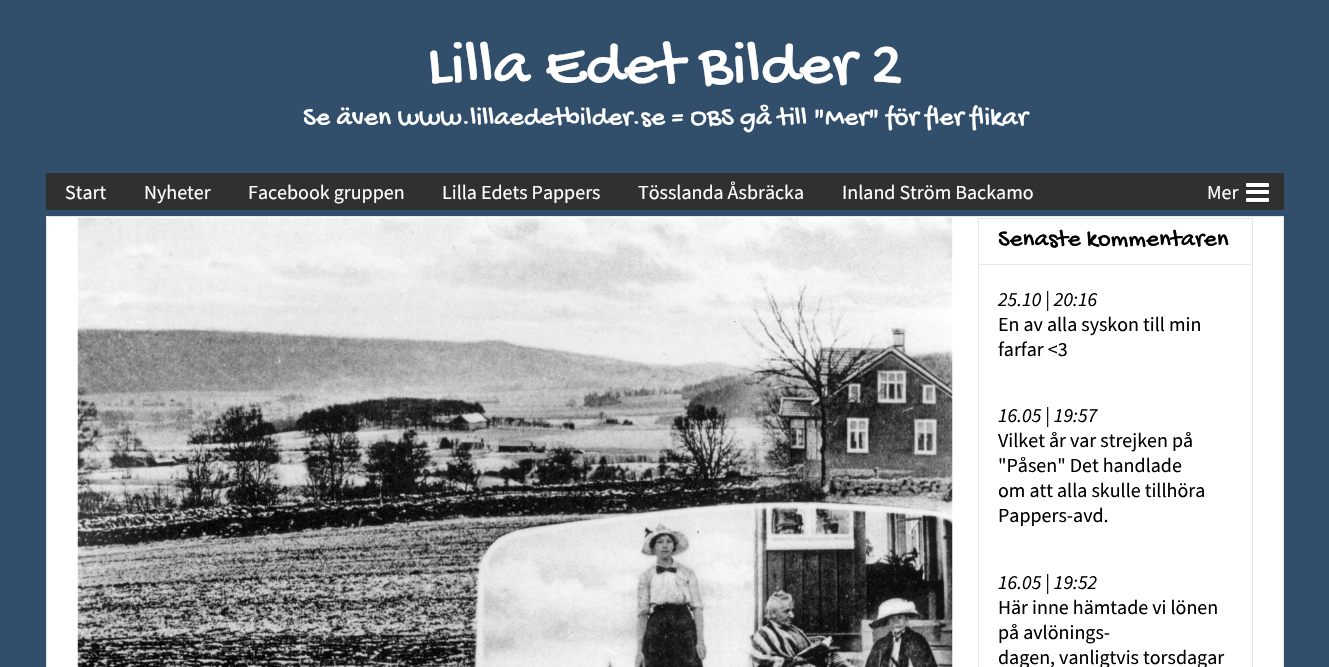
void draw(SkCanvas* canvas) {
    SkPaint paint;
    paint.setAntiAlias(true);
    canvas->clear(0xFF314F6B);
    SkFont font1(fontMgr->matchFamilyStyle("Gochi Hand", SkFontStyle::Normal()), 65);
    font1.setSubpixel(true);
    paint.setColor(0xFFFFFFFF);
    canvas->drawString("Lilla Edet Bilder 2", 427, 81, font1, paint);
    SkFont font2(fontMgr->matchFamilyStyle("Gochi Hand", SkFontStyle::Normal()), 27.5f);
    font2.setSubpixel(true);
    canvas->drawString("Se även www.lillaedetbilder.se = OBS gå till \"Mer\" för fler flikar", 303, 124, font2, paint);
    paint.setColor(0xFF303030);
    canvas->drawRect(SkRect::MakeXYWH(46, 173, 1238, 37), paint);
    SkFont font3(fontMgr->matchFamilyStyle("Source Sans Pro", SkFontStyle::Normal()), 20);
    font3.setSubpixel(true);
    paint.setColor(0xFFFFFFFF);
    canvas->drawString("Start", 65, 199, font3, paint);
    canvas->drawString("Nyheter", 144, 199, font3, paint);
    canvas->drawString("Facebook gruppen", 248, 199, font3, paint);
    canvas->drawString("Lilla Edets Pappers", 442, 199, font3, paint);
    canvas->drawString("Tösslanda Åsbräcka", 638, 199, font3, paint);
    canvas->drawString("Inland Ström Backamo", 842, 199, font3, paint);
    canvas->drawString("Mer", 1207, 199, font3, paint);
    paint.setColor(0xFF242424);
    canvas->drawPath(SkPathBuilder().moveTo(1246, 184.5f).lineTo(1246, 186).cubicTo(1246, 189, 1247.5f, 188, 1250.5f, 188).lineTo(1264.5f, 188).cubicTo(1267.5f, 188, 1269, 189, 1269, 186).lineTo(1269, 184.5f).cubicTo(1269, 187, 1266.5f, 186, 1264, 186).lineTo(1251, 186).cubicTo(1248.5f, 186, 1246, 187, 1246, 184.5f).close().detach(), paint);
    paint.setColor(0xFFFFFFFF);
    canvas->drawRoundRect(SkRect::MakeXYWH(1246, 183, 23, 4), 1, 1, paint);
    paint.setColor(0xFF242424);
    canvas->drawPath(SkPathBuilder().moveTo(1246, 191.5f).lineTo(1246, 193).cubicTo(1246, 196, 1247.5f, 195, 1250.5f, 195).lineTo(1264.5f, 195).cubicTo(1267.5f, 195, 1269, 196, 1269, 193).lineTo(1269, 191.5f).cubicTo(1269, 194.5f, 1267.5f, 194, 1264, 194).lineTo(1251, 194).cubicTo(1247.5f, 194, 1246, 194.5f, 1246, 191.5f).close().detach(), paint);
    paint.setColor(0xFFFFFFFF);
    canvas->drawRoundRect(SkRect::MakeXYWH(1246, 190, 23, 4), 1, 1, paint);
    paint.setColor(0xFF242424);
    canvas->drawPath(SkPathBuilder().moveTo(1246, 199.5f).lineTo(1246, 201).cubicTo(1246, 204, 1247.5f, 203, 1250.5f, 203).lineTo(1264.5f, 203).cubicTo(1267.5f, 203, 1269, 204, 1269, 201).lineTo(1269, 199.5f).cubicTo(1269, 202, 1266.5f, 201, 1264, 201).lineTo(1251, 201).cubicTo(1248.5f, 201, 1246, 202, 1246, 199.5f).close().detach(), paint);
    paint.setColor(0xFFFFFFFF);
    canvas->drawRoundRect(SkRect::MakeXYWH(1246, 198, 23, 4), 1, 1, paint);
    canvas->drawRect(SkRect::MakeXYWH(46.5f, 216.5f, 1237, 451), paint);
    paint.setStyle(SkPaint::kStroke_Style);
    paint.setStrokeWidth(1);
    paint.setColor(0xFFE6E6E6);
    canvas->drawRect(SkRect::MakeXYWH(46.5f, 216.5f, 1237, 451), paint);
    canvas->drawImageRect(SkImages::DeferredFromEncodedData(SkData::MakeFromFileName("img1.png")), SkRect::MakeXYWH(77, 217, 876, 450), SkSamplingOptions());
    canvas->drawRect(SkRect::MakeXYWH(978.5f, 218.5f, 274, 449), paint);
    paint.setStyle(SkPaint::kFill_Style);
    canvas->drawRect(SkRect::MakeXYWH(979, 264, 272, 1), paint);
    SkFont font4(fontMgr->matchFamilyStyle("Gochi Hand", SkFontStyle::Normal()), 25);
    font4.setSubpixel(true);
    paint.setColor(0xFF000000);
    canvas->drawString("Senaste kommentaren", 998, 245, font4, paint);
    SkFont font5(fontMgr->matchFamilyStyle("Source Sans Pro", SkFontStyle::Italic()), 20);
    font5.setSubpixel(true);
    canvas->drawString("25.10 | 20:16", 998, 306, font5, paint);
    canvas->drawString("En av alla syskon till min", 998, 331, font3, paint);
    canvas->drawString("farfar <3", 998, 356, font3, paint);
    canvas->drawString("16.05 | 19:57", 998, 422, font5, paint);
    canvas->drawString("Vilket år var strejken på", 998, 447, font3, paint);
    canvas->drawString("\"Påsen\" Det handlade", 998, 472, font3, paint);
    canvas->drawString("om att alla skulle tillhöra", 998, 497, font3, paint);
    canvas->drawString("Pappers-avd.", 998, 522, font3, paint);
    canvas->drawString("16.05 | 19:52", 998, 589, font5, paint);
    canvas->drawString("Här inne hämtade vi lönen", 998, 614, font3, paint);
    canvas->drawString("på avlönings-", 998, 639, font3, paint);
    canvas->drawString("dagen, vanligtvis torsdagar", 998, 664, font3, paint);
}
